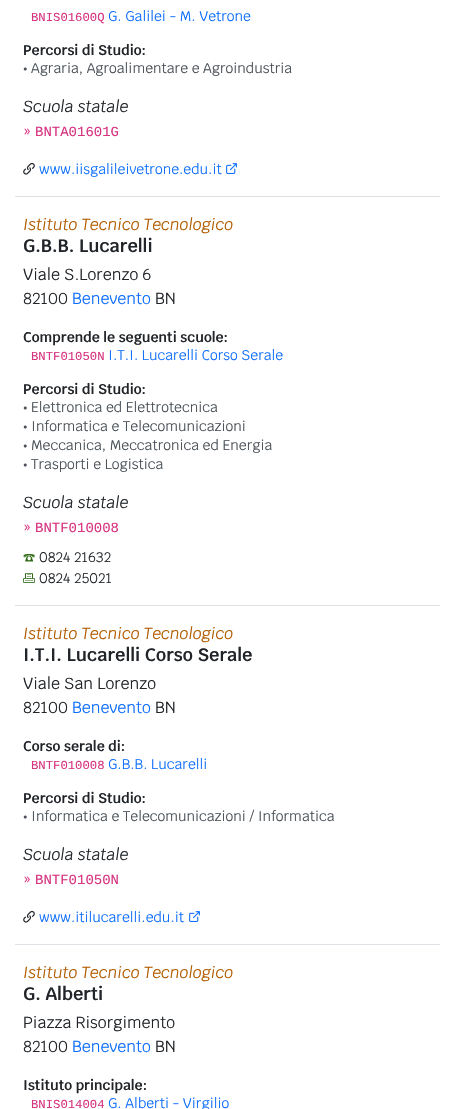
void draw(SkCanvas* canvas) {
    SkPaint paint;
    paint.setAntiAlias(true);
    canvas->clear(0xFFFFFFFF);
    paint.setColor(0xFFDEE2E6);
    canvas->drawRect(SkRect::MakeXYWH(15, 196, 425, 1), paint);
    SkFont font1(fontMgr->matchFamilyStyle("Liberation Mono", SkFontStyle::Normal()), 12.25f);
    font1.setSubpixel(true);
    paint.setColor(0xFFD63380);
    canvas->drawString("BNIS01600Q", 31, 21, font1, paint);
    SkFont font2(fontMgr->matchFamilyStyle("Krub", SkFontStyle::Normal()), 14);
    font2.setSubpixel(true);
    paint.setColor(0xFF0D6EFB);
    canvas->drawString("G. Galilei - M. Vetrone", 108, 21, font2, paint);
    SkFont font3(fontMgr->matchFamilyStyle("Krub", SkFontStyle(600, SkFontStyle::kNormal_Width, SkFontStyle::kUpright_Slant)), 14);
    font3.setSubpixel(true);
    paint.setColor(0xFF212529);
    canvas->drawString("Percorsi di Studio:", 23, 55, font3, paint);
    SkFont font4(fontMgr->matchFamilyStyle("Krub", SkFontStyle::Normal()), 8);
    font4.setSubpixel(true);
    paint.setColor(0xFF495057);
    canvas->drawString("•", 23, 72, font4, paint);
    canvas->drawString("Agraria, Agroalimentare e Agroindustria", 31, 73, font2, paint);
    SkFont font5(fontMgr->matchFamilyStyle("Krub", SkFontStyle::Italic()), 16);
    font5.setSubpixel(true);
    paint.setColor(0xFF212529);
    canvas->drawString("Scuola statale", 23, 112, font5, paint);
    SkFont font6(fontMgr->matchFamilyStyle("Krub", SkFontStyle::Normal()), 16);
    font6.setSubpixel(true);
    paint.setColor(0xFFD63380);
    canvas->drawString("»", 23, 136, font6, paint);
    SkFont font7(fontMgr->matchFamilyStyle("Liberation Mono", SkFontStyle::Normal()), 14);
    font7.setSubpixel(true);
    canvas->drawString("BNTA01601G", 35, 136, font7, paint);
    canvas->drawImageRect(SkImages::DeferredFromEncodedData(SkData::MakeFromFileName("img1.png")), SkRect::MakeXYWH(23, 162, 12, 13), SkSamplingOptions());
    paint.setColor(0xFF0D6EFB);
    canvas->drawString("www.iisgalileivetrone.edu.it", 39, 174, font2, paint);
    canvas->drawImageRect(SkImages::DeferredFromEncodedData(SkData::MakeFromFileName("img2.png")), SkRect::MakeXYWH(226, 163, 11, 11), SkSamplingOptions());
    paint.setColor(0xFFDEE2E6);
    canvas->drawRect(SkRect::MakeXYWH(15, 605, 425, 1), paint);
    paint.setColor(0xFFB25C00);
    canvas->drawString("Istituto Tecnico Tecnologico", 23, 230, font5, paint);
    SkFont font8(fontMgr->matchFamilyStyle("Krub", SkFontStyle(600, SkFontStyle::kNormal_Width, SkFontStyle::kUpright_Slant)), 18);
    font8.setSubpixel(true);
    paint.setColor(0xFF212529);
    canvas->drawString("G.B.B. Lucarelli", 23, 252, font8, paint);
    canvas->drawString("Viale S.Lorenzo 6", 23, 280, font6, paint);
    canvas->drawString("82100", 23, 304, font6, paint);
    paint.setColor(0xFF0D6EFB);
    canvas->drawString("Benevento", 72, 304, font6, paint);
    paint.setColor(0xFF212529);
    canvas->drawString("BN", 155, 304, font6, paint);
    canvas->drawString("Comprende le seguenti scuole:", 23, 342, font3, paint);
    paint.setColor(0xFFD63380);
    canvas->drawString("BNTF01050N", 31, 360, font1, paint);
    paint.setColor(0xFF0D6EFB);
    canvas->drawString("I.T.I. Lucarelli Corso Serale", 108, 360, font2, paint);
    paint.setColor(0xFF212529);
    canvas->drawString("Percorsi di Studio:", 23, 394, font3, paint);
    paint.setColor(0xFF495057);
    canvas->drawString("•", 23, 411, font4, paint);
    canvas->drawString("Elettronica ed Elettrotecnica", 31, 412, font2, paint);
    canvas->drawString("•", 23, 430, font4, paint);
    canvas->drawString("Informatica e Telecomunicazioni", 31, 431, font2, paint);
    canvas->drawString("•", 23, 449, font4, paint);
    canvas->drawString("Meccanica, Meccatronica ed Energia", 31, 450, font2, paint);
    canvas->drawString("•", 23, 468, font4, paint);
    canvas->drawString("Trasporti e Logistica", 31, 469, font2, paint);
    paint.setColor(0xFF212529);
    canvas->drawString("Scuola statale", 23, 508, font5, paint);
    paint.setColor(0xFFD63380);
    canvas->drawString("»", 23, 532, font6, paint);
    canvas->drawString("BNTF010008", 35, 532, font7, paint);
    canvas->drawImageRect(SkImages::DeferredFromEncodedData(SkData::MakeFromFileName("img3.png")), SkRect::MakeXYWH(23, 554, 12, 8), SkSamplingOptions());
    paint.setColor(0xFF212529);
    canvas->drawString("0824 21632", 39, 562, font2, paint);
    canvas->drawImageRect(SkImages::DeferredFromEncodedData(SkData::MakeFromFileName("img4.png")), SkRect::MakeXYWH(23, 573, 12, 10), SkSamplingOptions());
    canvas->drawString("0824 25021", 39, 583, font2, paint);
    paint.setColor(0xFFDEE2E6);
    canvas->drawRect(SkRect::MakeXYWH(15, 944, 425, 1), paint);
    paint.setColor(0xFFB25C00);
    canvas->drawString("Istituto Tecnico Tecnologico", 23, 639, font5, paint);
    paint.setColor(0xFF212529);
    canvas->drawString("I.T.I. Lucarelli Corso Serale", 23, 661, font8, paint);
    canvas->drawString("Viale San Lorenzo", 23, 689, font6, paint);
    canvas->drawString("82100", 23, 713, font6, paint);
    paint.setColor(0xFF0D6EFB);
    canvas->drawString("Benevento", 72, 713, font6, paint);
    paint.setColor(0xFF212529);
    canvas->drawString("BN", 155, 713, font6, paint);
    canvas->drawString("Corso serale di:", 23, 751, font3, paint);
    paint.setColor(0xFFD63380);
    canvas->drawString("BNTF010008", 31, 769, font1, paint);
    paint.setColor(0xFF0D6EFB);
    canvas->drawString("G.B.B. Lucarelli", 108, 769, font2, paint);
    paint.setColor(0xFF212529);
    canvas->drawString("Percorsi di Studio:", 23, 803, font3, paint);
    paint.setColor(0xFF495057);
    canvas->drawString("•", 23, 820, font4, paint);
    canvas->drawString("Informatica e Telecomunicazioni / Informatica", 31, 821, font2, paint);
    paint.setColor(0xFF212529);
    canvas->drawString("Scuola statale", 23, 860, font5, paint);
    paint.setColor(0xFFD63380);
    canvas->drawString("»", 23, 884, font6, paint);
    canvas->drawString("BNTF01050N", 35, 884, font7, paint);
    canvas->drawImageRect(SkImages::DeferredFromEncodedData(SkData::MakeFromFileName("img1.png")), SkRect::MakeXYWH(23, 910, 12, 13), SkSamplingOptions());
    paint.setColor(0xFF0D6EFB);
    canvas->drawString("www.itilucarelli.edu.it", 39, 922, font2, paint);
    canvas->drawImageRect(SkImages::DeferredFromEncodedData(SkData::MakeFromFileName("img2.png")), SkRect::MakeXYWH(189, 911, 11, 11), SkSamplingOptions());
    paint.setColor(0xFFB25C00);
    canvas->drawString("Istituto Tecnico Tecnologico", 23, 978, font5, paint);
    paint.setColor(0xFF212529);
    canvas->drawString("G. Alberti", 23, 1000, font8, paint);
    canvas->drawString("Piazza Risorgimento", 23, 1028, font6, paint);
    canvas->drawString("82100", 23, 1052, font6, paint);
    paint.setColor(0xFF0D6EFB);
    canvas->drawString("Benevento", 72, 1052, font6, paint);
    paint.setColor(0xFF212529);
    canvas->drawString("BN", 155, 1052, font6, paint);
    canvas->drawString("Istituto principale:", 23, 1090, font3, paint);
    paint.setColor(0xFFD63380);
    canvas->drawString("BNIS014004", 31, 1108, font1, paint);
    paint.setColor(0xFF0D6EFB);
    canvas->drawString("G. Alberti - Virgilio", 108, 1108, font2, paint);
}
